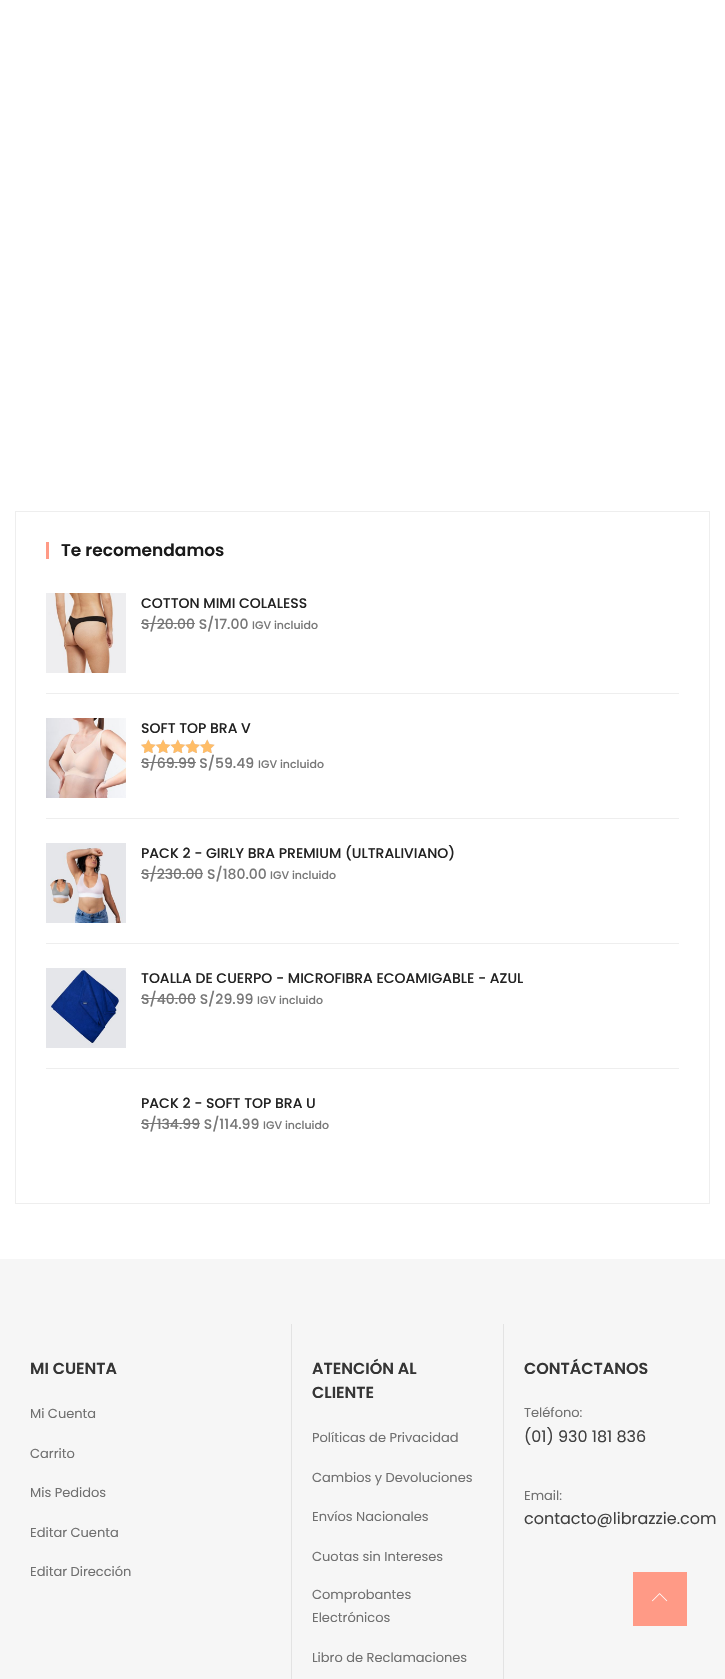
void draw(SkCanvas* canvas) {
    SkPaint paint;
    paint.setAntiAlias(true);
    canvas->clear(0xFFFFFFFF);
    paint.setStyle(SkPaint::kStroke_Style);
    paint.setStrokeWidth(1);
    paint.setColor(0xFFEEEEEE);
    canvas->drawRect(SkRect::MakeXYWH(15.5f, 511.5f, 694, 692), paint);
    paint.setStyle(SkPaint::kFill_Style);
    paint.setColor(0xFFFF9A86);
    canvas->drawRect(SkRect::MakeXYWH(46, 542, 3, 17), paint);
    SkFont font1(fontMgr->matchFamilyStyle("Poppins", SkFontStyle(600, SkFontStyle::kNormal_Width, SkFontStyle::kUpright_Slant)), 17);
    font1.setSubpixel(true);
    paint.setColor(0xFF1A1A1A);
    canvas->drawString("Te recomendamos", 61, 556, font1, paint);
    paint.setColor(0xFFEEEEEE);
    canvas->drawRect(SkRect::MakeXYWH(46, 693, 633, 1), paint);
    canvas->drawImageRect(SkImages::DeferredFromEncodedData(SkData::MakeFromFileName("img1.png")), SkRect::MakeXYWH(46, 593, 80, 80), SkSamplingOptions());
    SkFont font2(fontMgr->matchFamilyStyle("Poppins", SkFontStyle(500, SkFontStyle::kNormal_Width, SkFontStyle::kUpright_Slant)), 14);
    font2.setSubpixel(true);
    paint.setColor(0xFF222222);
    canvas->drawString("COTTON MIMI COLALESS", 141, 608, font2, paint);
    paint.setColor(0xFF777777);
    canvas->drawString("S/20.00 S/17.00", 141, 629, font2, paint);
    canvas->drawRect(SkRect::MakeXYWH(141, 623, 54, 1), paint);
    SkFont font3(fontMgr->matchFamilyStyle("Poppins", SkFontStyle(500, SkFontStyle::kNormal_Width, SkFontStyle::kUpright_Slant)), 11);
    font3.setSubpixel(true);
    canvas->drawString("IGV incluido", 252, 629, font3, paint);
    paint.setColor(0xFFEEEEEE);
    canvas->drawRect(SkRect::MakeXYWH(46, 818, 633, 1), paint);
    canvas->drawImageRect(SkImages::DeferredFromEncodedData(SkData::MakeFromFileName("img2.png")), SkRect::MakeXYWH(46, 718, 80, 80), SkSamplingOptions());
    paint.setColor(0xFF222222);
    canvas->drawString("SOFT TOP BRA V", 141, 733, font2, paint);
    canvas->drawImageRect(SkImages::DeferredFromEncodedData(SkData::MakeFromFileName("img3.png")), SkRect::MakeXYWH(141, 739, 74, 14), SkSamplingOptions());
    canvas->drawImageRect(SkImages::DeferredFromEncodedData(SkData::MakeFromFileName("img4.png")), SkRect::MakeXYWH(141, 739, 74, 14), SkSamplingOptions());
    paint.setColor(0xFF777777);
    canvas->drawString("S/69.99 S/59.49", 141, 768, font2, paint);
    canvas->drawRect(SkRect::MakeXYWH(141, 762, 55, 1), paint);
    canvas->drawString("IGV incluido", 258, 768, font3, paint);
    paint.setColor(0xFFEEEEEE);
    canvas->drawRect(SkRect::MakeXYWH(46, 943, 633, 1), paint);
    canvas->drawImageRect(SkImages::DeferredFromEncodedData(SkData::MakeFromFileName("img5.png")), SkRect::MakeXYWH(46, 843, 80, 80), SkSamplingOptions());
    paint.setColor(0xFF222222);
    canvas->drawString("PACK 2 - GIRLY BRA PREMIUM (ULTRALIVIANO)", 141, 858, font2, paint);
    paint.setColor(0xFF777777);
    canvas->drawString("S/230.00 S/180.00", 141, 879, font2, paint);
    canvas->drawRect(SkRect::MakeXYWH(141, 873, 62, 1), paint);
    canvas->drawString("IGV incluido", 270, 879, font3, paint);
    paint.setColor(0xFFEEEEEE);
    canvas->drawRect(SkRect::MakeXYWH(46, 1068, 633, 1), paint);
    canvas->drawImageRect(SkImages::DeferredFromEncodedData(SkData::MakeFromFileName("img6.png")), SkRect::MakeXYWH(46, 968, 80, 80), SkSamplingOptions());
    paint.setColor(0xFF222222);
    canvas->drawString("TOALLA DE CUERPO - MICROFIBRA ECOAMIGABLE - AZUL", 141, 983, font2, paint);
    paint.setColor(0xFF777777);
    canvas->drawString("S/40.00 S/29.99", 141, 1004, font2, paint);
    canvas->drawRect(SkRect::MakeXYWH(141, 998, 55, 1), paint);
    canvas->drawString("IGV incluido", 257, 1004, font3, paint);
    paint.setColor(0xFF222222);
    canvas->drawString("PACK 2 - SOFT TOP BRA U", 141, 1108, font2, paint);
    paint.setColor(0xFF777777);
    canvas->drawString("S/134.99 S/114.99", 141, 1129, font2, paint);
    canvas->drawRect(SkRect::MakeXYWH(141, 1123, 59, 1), paint);
    canvas->drawString("IGV incluido", 263, 1129, font3, paint);
    paint.setColor(0xFFF6F6F6);
    canvas->drawRect(SkRect::MakeXYWH(0, 1259, 725, 420), paint);
    paint.setColor(0xFFE3E3E3);
    canvas->drawRect(SkRect::MakeXYWH(291, 1324, 1, 355), paint);
    SkFont font4(fontMgr->matchFamilyStyle("Poppins", SkFontStyle(600, SkFontStyle::kNormal_Width, SkFontStyle::kUpright_Slant)), 16);
    font4.setSubpixel(true);
    paint.setColor(0xFF353535);
    canvas->drawString("MI CUENTA", 30, 1374, font4, paint);
    SkFont font5(fontMgr->matchFamilyStyle("Poppins", SkFontStyle::Normal()), 13);
    font5.setSubpixel(true);
    paint.setColor(0xFF707070);
    canvas->drawString("Mi Cuenta", 30, 1418, font5, paint);
    canvas->drawString("Carrito", 30, 1458, font5, paint);
    canvas->drawString("Mis Pedidos", 30, 1497, font5, paint);
    canvas->drawString("Editar Cuenta", 30, 1537, font5, paint);
    canvas->drawString("Editar Dirección", 30, 1576, font5, paint);
    paint.setColor(0xFFE3E3E3);
    canvas->drawRect(SkRect::MakeXYWH(503, 1324, 1, 355), paint);
    paint.setColor(0xFF353535);
    canvas->drawString("ATENCIÓN AL", 312, 1374, font4, paint);
    canvas->drawString("CLIENTE", 312, 1398, font4, paint);
    paint.setColor(0xFF707070);
    canvas->drawString("Políticas de Privacidad", 312, 1442, font5, paint);
    canvas->drawString("Cambios y Devoluciones", 312, 1482, font5, paint);
    canvas->drawString("Envíos Nacionales", 312, 1521, font5, paint);
    canvas->drawString("Cuotas sin Intereses", 312, 1561, font5, paint);
    canvas->drawString("Comprobantes", 312, 1599, font5, paint);
    canvas->drawString("Electrónicos", 312, 1622, font5, paint);
    canvas->drawString("Libro de Reclamaciones", 312, 1662, font5, paint);
    paint.setColor(0xFF353535);
    canvas->drawString("CONTÁCTANOS", 524, 1374, font4, paint);
    paint.setColor(0xFF707070);
    canvas->drawString("Teléfono:", 524, 1417, font5, paint);
    SkFont font6(fontMgr->matchFamilyStyle("Poppins", SkFontStyle::Normal()), 16);
    font6.setSubpixel(true);
    paint.setColor(0xFF404040);
    canvas->drawString("(01) 930 181 836", 524, 1442, font6, paint);
    paint.setColor(0xFF707070);
    canvas->drawString("Email:", 524, 1500, font5, paint);
    paint.setColor(0xFF404040);
    canvas->drawString("contacto@librazzie.com", 524, 1524, font6, paint);
    paint.setColor(0xFFFF9A86);
    canvas->drawRect(SkRect::MakeXYWH(633, 1572, 54, 54), paint);
    canvas->drawImageRect(SkImages::DeferredFromEncodedData(SkData::MakeFromFileName("img7.png")), SkRect::MakeXYWH(652, 1593, 16, 9), SkSamplingOptions());
}
